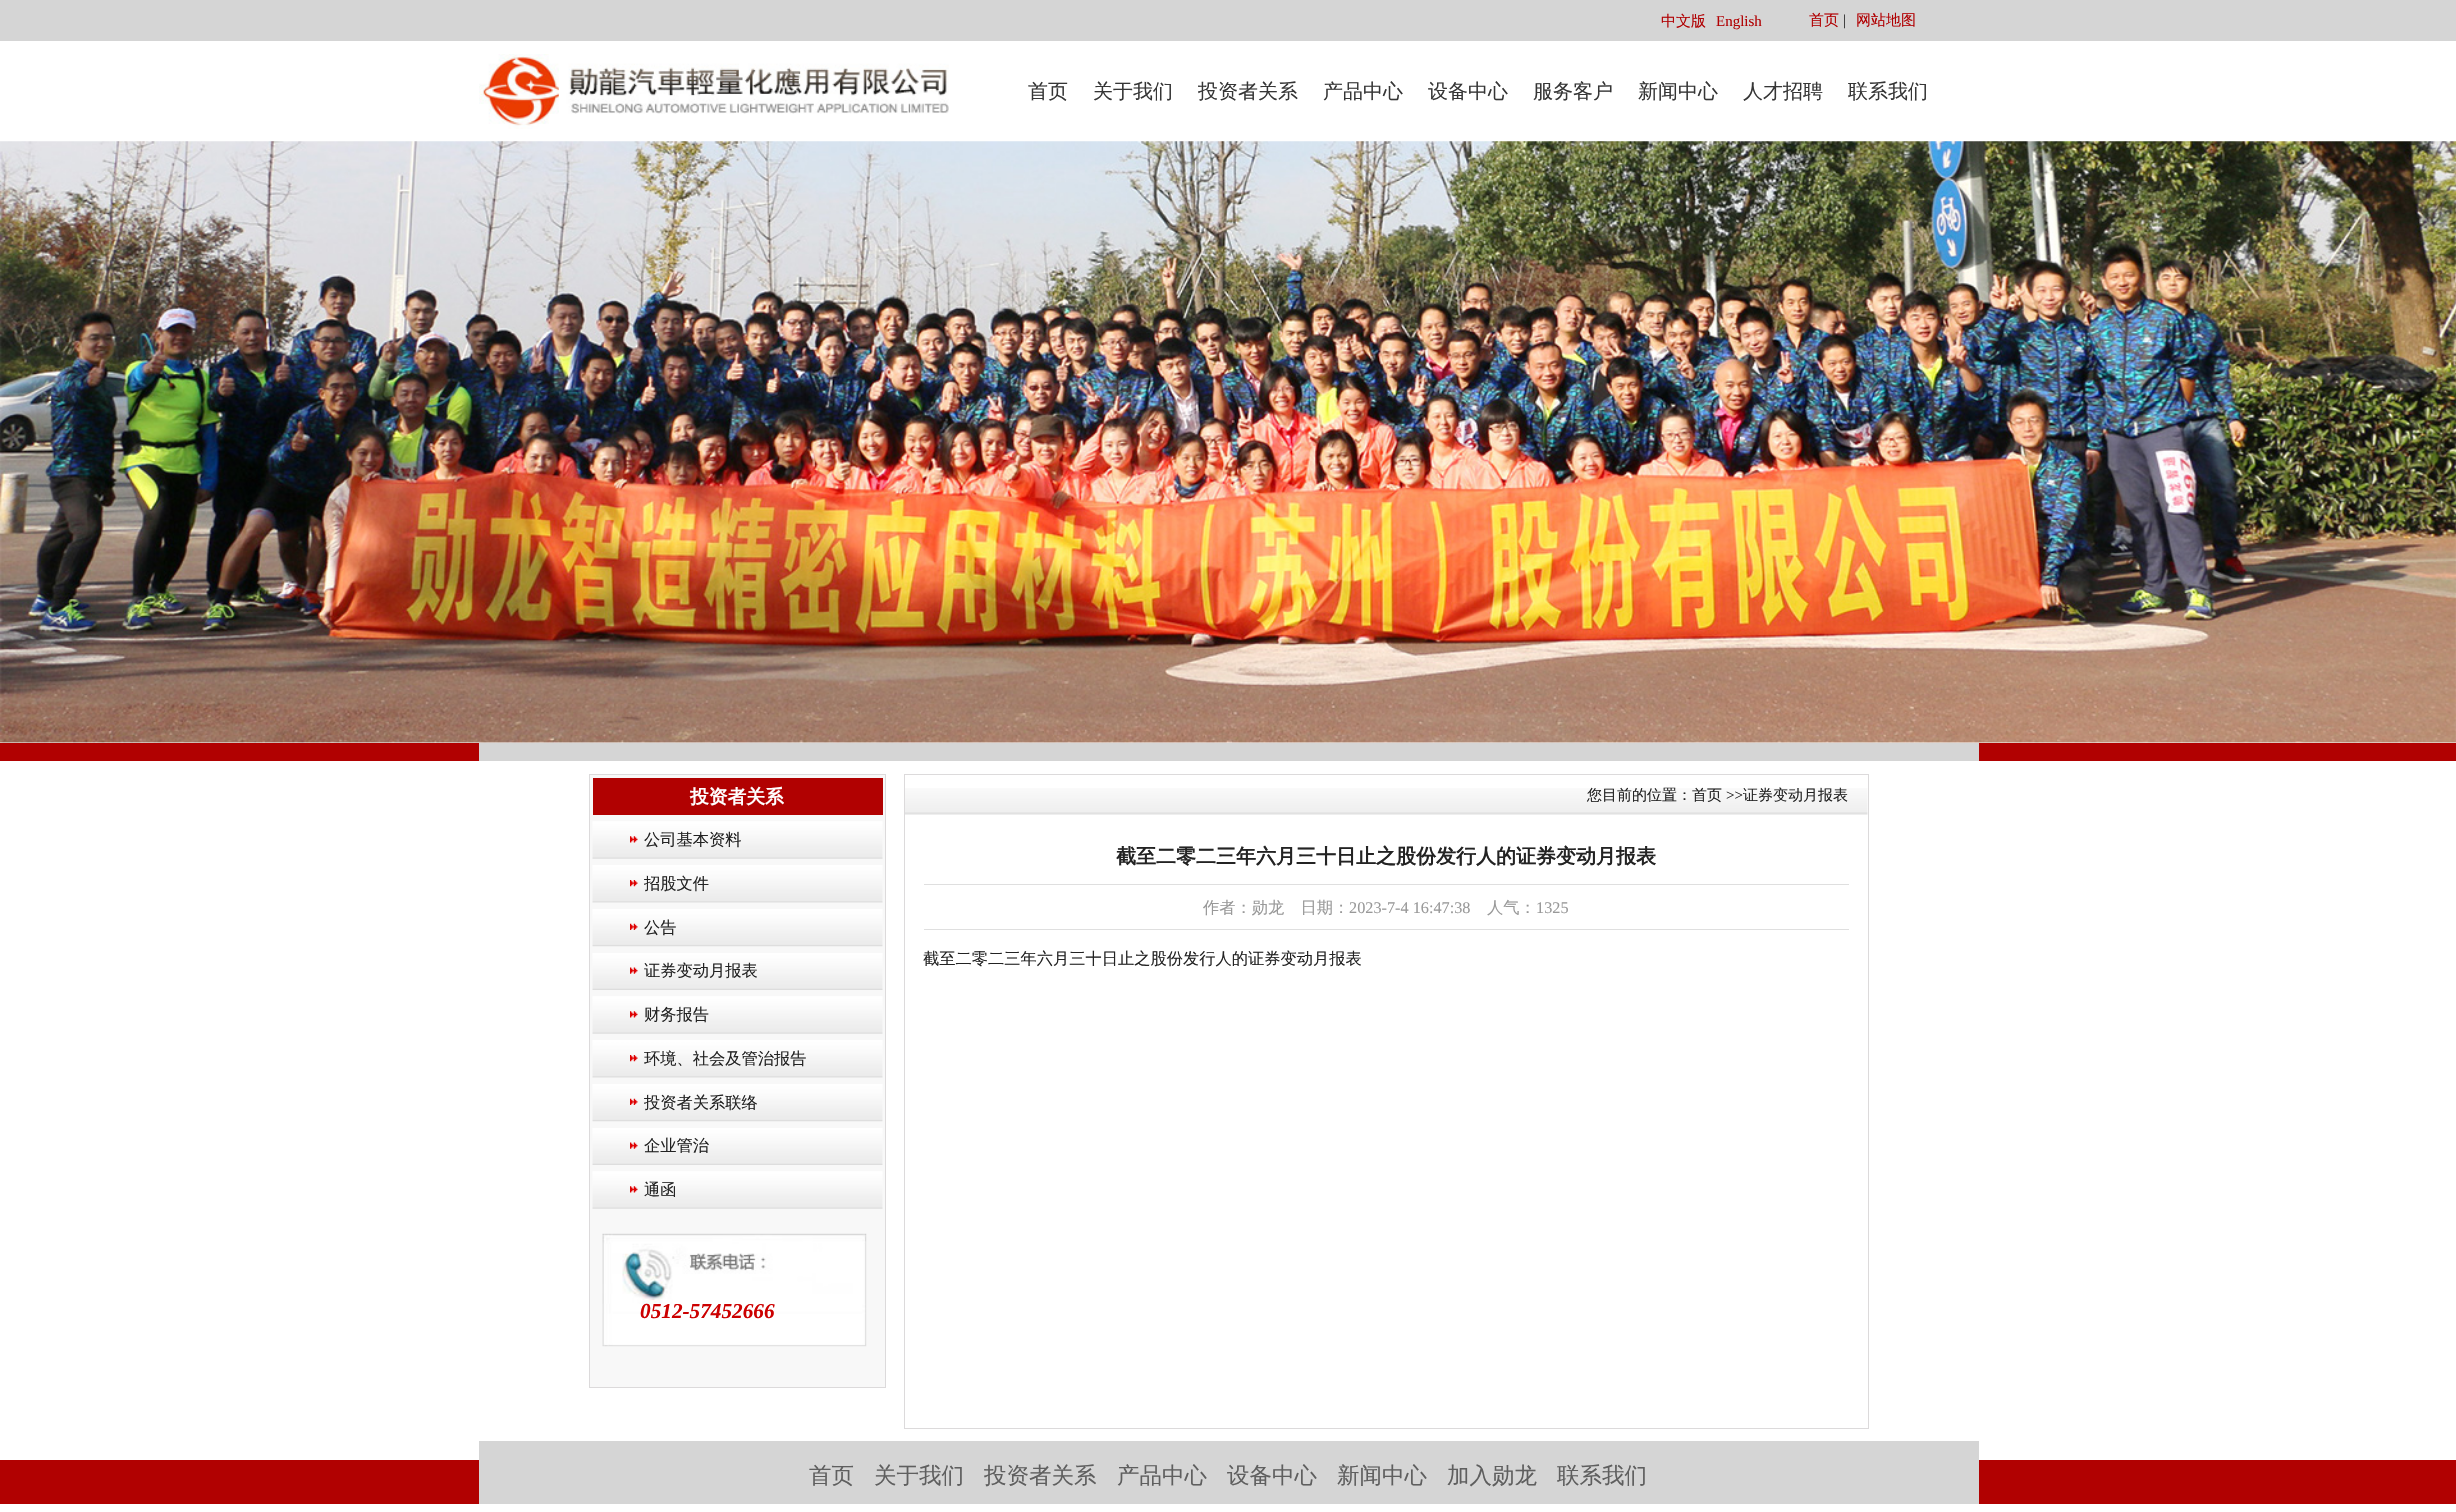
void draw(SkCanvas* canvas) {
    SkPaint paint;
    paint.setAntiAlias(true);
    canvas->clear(0xFFFFFFFF);
    paint.setColor(0xFFD5D5D5);
    canvas->drawRect(SkRect::MakeXYWH(0, 0, 2456, 41), paint);
    SkFont font1(fontMgr->matchFamilyStyle("WenQuanYi Zen Hei", SkFontStyle(500, SkFontStyle::kNormal_Width, SkFontStyle::kUpright_Slant)), 15);
    font1.setSubpixel(true);
    paint.setColor(0xFFB10103);
    canvas->drawString("中文版", 1661, 26, font1, paint);
    SkFont font2(fontMgr->matchFamilyStyle("Liberation Serif", SkFontStyle::Normal()), 15);
    font2.setSubpixel(true);
    canvas->drawString("English", 1716, 26, font2, paint);
    canvas->drawString("首页", 1809, 25, font1, paint);
    paint.setColor(0xFF232323);
    canvas->drawString("|", 1843, 25, font2, paint);
    paint.setColor(0xFFB10103);
    canvas->drawString("网站地图", 1856, 25, font1, paint);
    canvas->drawImageRect(SkImages::DeferredFromEncodedData(SkData::MakeFromFileName("img1.png")), SkRect::MakeXYWH(479, 54, 470, 75), SkSamplingOptions());
    SkFont font3(fontMgr->matchFamilyStyle("WenQuanYi Zen Hei", SkFontStyle(500, SkFontStyle::kNormal_Width, SkFontStyle::kUpright_Slant)), 20);
    font3.setSubpixel(true);
    paint.setColor(0xFF363636);
    canvas->drawString("首页", 1028, 98, font3, paint);
    canvas->drawString("关于我们", 1093, 98, font3, paint);
    canvas->drawString("投资者关系", 1198, 98, font3, paint);
    canvas->drawString("产品中心", 1323, 98, font3, paint);
    canvas->drawString("设备中心", 1428, 98, font3, paint);
    canvas->drawString("服务客户", 1533, 98, font3, paint);
    canvas->drawString("新闻中心", 1638, 98, font3, paint);
    canvas->drawString("人才招聘", 1743, 98, font3, paint);
    canvas->drawString("联系我们", 1848, 98, font3, paint);
    canvas->drawImageRect(SkImages::DeferredFromEncodedData(SkData::MakeFromFileName("img2.png")), SkRect::MakeXYWH(0, 141, 2456, 602), SkSamplingOptions());
    paint.setColor(0xFFB10101);
    canvas->drawRect(SkRect::MakeXYWH(0, 743, 2456, 18), paint);
    paint.setColor(0xFFD5D5D5);
    canvas->drawRect(SkRect::MakeXYWH(479, 743, 1500, 18), paint);
    paint.setColor(0xFFF8F8F8);
    canvas->drawRect(SkRect::MakeXYWH(589.5f, 774.5f, 296, 613), paint);
    paint.setStyle(SkPaint::kStroke_Style);
    paint.setStrokeWidth(1);
    paint.setColor(0xFFDCDADB);
    canvas->drawRect(SkRect::MakeXYWH(589.5f, 774.5f, 296, 613), paint);
    paint.setStyle(SkPaint::kFill_Style);
    paint.setColor(0xFFB10101);
    canvas->drawRect(SkRect::MakeXYWH(593, 778, 290, 37), paint);
    SkFont font4(fontMgr->matchFamilyStyle("WenQuanYi Zen Hei", SkFontStyle::Bold()), 18.75f);
    font4.setSubpixel(true);
    paint.setColor(0xFFFFFFFF);
    canvas->drawString("投资者关系", 690, 803, font4, paint);
    canvas->drawImageRect(SkImages::DeferredFromEncodedData(SkData::MakeFromFileName("img3.png")), SkRect::MakeXYWH(592, 821, 291, 38), SkSamplingOptions());
    canvas->drawImageRect(SkImages::DeferredFromEncodedData(SkData::MakeFromFileName("img4.png")), SkRect::MakeXYWH(630, 836, 8, 7), SkSamplingOptions());
    SkFont font5(fontMgr->matchFamilyStyle("WenQuanYi Zen Hei", SkFontStyle(500, SkFontStyle::kNormal_Width, SkFontStyle::kUpright_Slant)), 16.25f);
    font5.setSubpixel(true);
    paint.setColor(0xFF232323);
    canvas->drawString("公司基本资料", 644, 845, font5, paint);
    canvas->drawImageRect(SkImages::DeferredFromEncodedData(SkData::MakeFromFileName("img5.png")), SkRect::MakeXYWH(592, 865, 291, 38), SkSamplingOptions());
    canvas->drawImageRect(SkImages::DeferredFromEncodedData(SkData::MakeFromFileName("img6.png")), SkRect::MakeXYWH(630, 880, 8, 7), SkSamplingOptions());
    canvas->drawString("招股文件", 644, 889, font5, paint);
    canvas->drawImageRect(SkImages::DeferredFromEncodedData(SkData::MakeFromFileName("img7.png")), SkRect::MakeXYWH(592, 909, 291, 38), SkSamplingOptions());
    canvas->drawImageRect(SkImages::DeferredFromEncodedData(SkData::MakeFromFileName("img8.png")), SkRect::MakeXYWH(630, 923, 8, 7), SkSamplingOptions());
    canvas->drawString("公告", 644, 933, font5, paint);
    canvas->drawImageRect(SkImages::DeferredFromEncodedData(SkData::MakeFromFileName("img9.png")), SkRect::MakeXYWH(592, 953, 291, 37), SkSamplingOptions());
    canvas->drawImageRect(SkImages::DeferredFromEncodedData(SkData::MakeFromFileName("img10.png")), SkRect::MakeXYWH(630, 967, 8, 7), SkSamplingOptions());
    canvas->drawString("证券变动月报表", 644, 976, font5, paint);
    canvas->drawImageRect(SkImages::DeferredFromEncodedData(SkData::MakeFromFileName("img3.png")), SkRect::MakeXYWH(592, 996, 291, 38), SkSamplingOptions());
    canvas->drawImageRect(SkImages::DeferredFromEncodedData(SkData::MakeFromFileName("img4.png")), SkRect::MakeXYWH(630, 1011, 8, 7), SkSamplingOptions());
    canvas->drawString("财务报告", 644, 1020, font5, paint);
    canvas->drawImageRect(SkImages::DeferredFromEncodedData(SkData::MakeFromFileName("img11.png")), SkRect::MakeXYWH(592, 1040, 291, 38), SkSamplingOptions());
    canvas->drawImageRect(SkImages::DeferredFromEncodedData(SkData::MakeFromFileName("img6.png")), SkRect::MakeXYWH(630, 1055, 8, 7), SkSamplingOptions());
    canvas->drawString("环境、社会及管治报告", 644, 1064, font5, paint);
    canvas->drawImageRect(SkImages::DeferredFromEncodedData(SkData::MakeFromFileName("img7.png")), SkRect::MakeXYWH(592, 1084, 291, 38), SkSamplingOptions());
    canvas->drawImageRect(SkImages::DeferredFromEncodedData(SkData::MakeFromFileName("img8.png")), SkRect::MakeXYWH(630, 1098, 8, 7), SkSamplingOptions());
    canvas->drawString("投资者关系联络", 644, 1108, font5, paint);
    canvas->drawImageRect(SkImages::DeferredFromEncodedData(SkData::MakeFromFileName("img9.png")), SkRect::MakeXYWH(592, 1128, 291, 37), SkSamplingOptions());
    canvas->drawImageRect(SkImages::DeferredFromEncodedData(SkData::MakeFromFileName("img10.png")), SkRect::MakeXYWH(630, 1142, 8, 7), SkSamplingOptions());
    canvas->drawString("企业管治", 644, 1151, font5, paint);
    canvas->drawImageRect(SkImages::DeferredFromEncodedData(SkData::MakeFromFileName("img3.png")), SkRect::MakeXYWH(592, 1171, 291, 38), SkSamplingOptions());
    canvas->drawImageRect(SkImages::DeferredFromEncodedData(SkData::MakeFromFileName("img4.png")), SkRect::MakeXYWH(630, 1186, 8, 7), SkSamplingOptions());
    canvas->drawString("通函", 644, 1195, font5, paint);
    canvas->drawImageRect(SkImages::DeferredFromEncodedData(SkData::MakeFromFileName("img12.png")), SkRect::MakeXYWH(602, 1233, 265, 114), SkSamplingOptions());
    SkFont font6(fontMgr->matchFamilyStyle("Liberation Serif", SkFontStyle::BoldItalic()), 21.25f);
    font6.setSubpixel(true);
    paint.setColor(0xFFCC0000);
    canvas->drawString("0512-57452666", 640, 1318, font6, paint);
    paint.setStyle(SkPaint::kStroke_Style);
    paint.setColor(0xFFDCDADB);
    canvas->drawRect(SkRect::MakeXYWH(904.5f, 774.5f, 964, 654), paint);
    canvas->drawImageRect(SkImages::DeferredFromEncodedData(SkData::MakeFromFileName("img13.png")), SkRect::MakeXYWH(905, 788, 963, 27), SkSamplingOptions());
    paint.setStyle(SkPaint::kFill_Style);
    paint.setColor(0xFF232323);
    canvas->drawString("您目前的位置：首页", 1587, 800, font1, paint);
    canvas->drawString(">>", 1726, 800, font2, paint);
    canvas->drawString("证券变动月报表", 1743, 800, font1, paint);
    SkFont font7(fontMgr->matchFamilyStyle("WenQuanYi Zen Hei", SkFontStyle::Bold()), 20);
    font7.setSubpixel(true);
    canvas->drawString("截至二零二三年六月三十日止之股份发行人的证券变动月报表", 1116, 863, font7, paint);
    paint.setColor(0xFFDFDFDF);
    canvas->drawRect(SkRect::MakeXYWH(924, 884, 925, 1), paint);
    canvas->drawRect(SkRect::MakeXYWH(924, 929, 925, 1), paint);
    paint.setColor(0xFF999999);
    canvas->drawString("作者：勋龙　日期：", 1203, 913, font5, paint);
    SkFont font8(fontMgr->matchFamilyStyle("Liberation Serif", SkFontStyle::Normal()), 16.25f);
    font8.setSubpixel(true);
    canvas->drawString("2023-7-4 16:47:38", 1349, 913, font8, paint);
    canvas->drawString("人气：", 1487, 913, font5, paint);
    canvas->drawString("1325", 1536, 913, font8, paint);
    paint.setColor(0xFF232323);
    canvas->drawString("截至二零二三年六月三十日止之股份发行人的证券变动月报表", 923, 964, font5, paint);
    paint.setColor(0xFFB10101);
    canvas->drawRect(SkRect::MakeXYWH(0, 1460, 2456, 44), paint);
    paint.setColor(0xFFD5D5D5);
    canvas->drawRect(SkRect::MakeXYWH(479, 1441, 1500, 63), paint);
    SkFont font9(fontMgr->matchFamilyStyle("WenQuanYi Zen Hei", SkFontStyle(500, SkFontStyle::kNormal_Width, SkFontStyle::kUpright_Slant)), 22.5f);
    font9.setSubpixel(true);
    paint.setColor(0xFF5F5F5F);
    canvas->drawString("首页", 809, 1483, font9, paint);
    canvas->drawString("关于我们", 874, 1483, font9, paint);
    canvas->drawString("投资者关系", 984, 1483, font9, paint);
    canvas->drawString("产品中心", 1117, 1483, font9, paint);
    canvas->drawString("设备中心", 1227, 1483, font9, paint);
    canvas->drawString("新闻中心", 1337, 1483, font9, paint);
    canvas->drawString("加入勋龙", 1447, 1483, font9, paint);
    canvas->drawString("联系我们", 1557, 1483, font9, paint);
}
